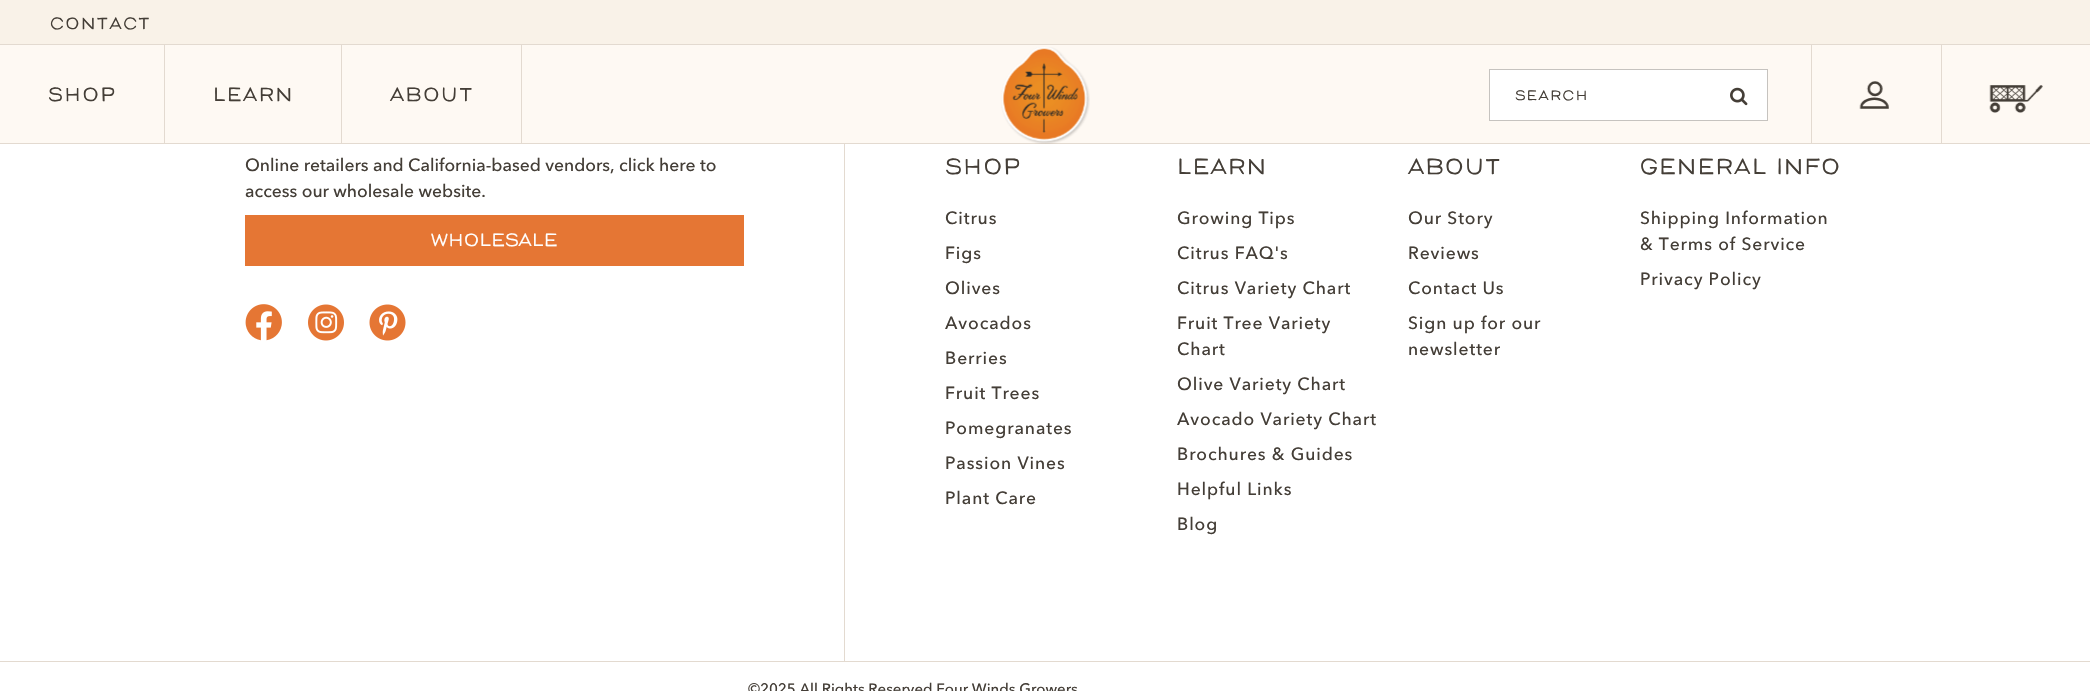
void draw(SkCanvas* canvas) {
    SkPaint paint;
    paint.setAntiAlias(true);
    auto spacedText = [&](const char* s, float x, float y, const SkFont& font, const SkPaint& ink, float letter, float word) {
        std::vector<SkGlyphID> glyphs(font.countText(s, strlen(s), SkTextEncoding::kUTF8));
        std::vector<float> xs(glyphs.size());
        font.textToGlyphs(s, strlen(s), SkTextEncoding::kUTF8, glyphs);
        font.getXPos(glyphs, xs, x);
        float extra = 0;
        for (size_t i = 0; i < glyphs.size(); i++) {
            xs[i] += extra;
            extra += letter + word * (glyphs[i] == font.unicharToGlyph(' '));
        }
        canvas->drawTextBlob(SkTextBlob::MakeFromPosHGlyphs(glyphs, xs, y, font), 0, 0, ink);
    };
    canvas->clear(0xFFFFFFFF);
    paint.setColor(0xFFF9F2E8);
    canvas->drawRect(SkRect::MakeXYWH(0, 0, 2090, 44), paint);
    SkFont font1(fontMgr->matchFamilyStyle("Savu", SkFontStyle::Bold()), 15);
    font1.setSubpixel(true);
    paint.setColor(0xFF443E37);
    spacedText("CONTACT", 50, 29, font1, paint, 1.25f, 0);
    paint.setColor(0xFFFEF9F3);
    canvas->drawRect(SkRect::MakeXYWH(0, 45, 2090, 98), paint);
    paint.setColor(0xFFE3DAD0);
    canvas->drawRect(SkRect::MakeXYWH(0, 143, 2090, 1), paint);
    canvas->drawImageRect(SkImages::DeferredFromEncodedData(SkData::MakeFromFileName("img1.png")), SkRect::MakeXYWH(1001, 47, 89, 97), SkSamplingOptions());
    canvas->drawRect(SkRect::MakeXYWH(0, 44, 2090, 1), paint);
    canvas->drawRect(SkRect::MakeXYWH(164, 45, 1, 99), paint);
    SkFont font2(fontMgr->matchFamilyStyle("Savu", SkFontStyle::Bold()), 17.5f);
    font2.setSubpixel(true);
    paint.setColor(0xFF443E37);
    spacedText("Shop", 48, 101, font2, paint, 1.25f, 0);
    paint.setColor(0xFFE3DAD0);
    canvas->drawRect(SkRect::MakeXYWH(341, 45, 1, 99), paint);
    paint.setColor(0xFF443E37);
    spacedText("Learn", 213, 101, font2, paint, 1.25f, 0);
    paint.setColor(0xFFE3DAD0);
    canvas->drawRect(SkRect::MakeXYWH(521, 45, 1, 99), paint);
    paint.setColor(0xFF443E37);
    spacedText("About", 390, 101, font2, paint, 1.25f, 0);
    paint.setColor(0xFFFFFFFF);
    canvas->drawRect(SkRect::MakeXYWH(1489.5f, 69.5f, 278, 51), paint);
    paint.setStyle(SkPaint::kStroke_Style);
    paint.setStrokeWidth(1);
    paint.setColor(0xFFC6C3BF);
    canvas->drawRect(SkRect::MakeXYWH(1489.5f, 69.5f, 278, 51), paint);
    SkFont font3(fontMgr->matchFamilyStyle("Savu", SkFontStyle::Bold()), 12.5f);
    font3.setSubpixel(true);
    paint.setStyle(SkPaint::kFill_Style);
    paint.setColor(0xFF443E37);
    spacedText("search", 1515, 100, font3, paint, 1.25f, 0);
    canvas->drawImageRect(SkImages::DeferredFromEncodedData(SkData::MakeFromFileName("img2.png")), SkRect::MakeXYWH(1730, 87, 18, 19), SkSamplingOptions());
    paint.setColor(0xFFE3DAD0);
    canvas->drawRect(SkRect::MakeXYWH(1811, 45, 1, 99), paint);
    canvas->drawImageRect(SkImages::DeferredFromEncodedData(SkData::MakeFromFileName("img3.png")), SkRect::MakeXYWH(1859, 81, 30, 28), SkSamplingOptions());
    canvas->drawRect(SkRect::MakeXYWH(1941, 45, 1, 99), paint);
    canvas->drawImageRect(SkImages::DeferredFromEncodedData(SkData::MakeFromFileName("img4.png")), SkRect::MakeXYWH(1989, 85, 54, 28), SkSamplingOptions());
    canvas->drawRect(SkRect::MakeXYWH(844, 144, 1, 517), paint);
    SkFont font4(fontMgr->matchFamilyStyle("avenir", SkFontStyle::Normal()), 17.5f);
    font4.setSubpixel(true);
    paint.setColor(0xFF443E37);
    canvas->drawString("Online retailers and California-based vendors, click here to", 245, 171, font4, paint);
    canvas->drawString("access our wholesale website.", 245, 197, font4, paint);
    paint.setColor(0xFFE57634);
    canvas->drawRect(SkRect::MakeXYWH(245, 215, 499, 51), paint);
    SkFont font5(fontMgr->matchFamilyStyle("Savu", SkFontStyle::Bold()), 16.25f);
    font5.setSubpixel(true);
    paint.setColor(0xFFFFFFFF);
    canvas->drawString("Wholesale", 431, 246, font5, paint);
    canvas->drawImageRect(SkImages::DeferredFromEncodedData(SkData::MakeFromFileName("img5.png")), SkRect::MakeXYWH(245, 304, 37, 37), SkSamplingOptions());
    canvas->drawImageRect(SkImages::DeferredFromEncodedData(SkData::MakeFromFileName("img6.png")), SkRect::MakeXYWH(308, 304, 36, 37), SkSamplingOptions());
    canvas->drawImageRect(SkImages::DeferredFromEncodedData(SkData::MakeFromFileName("img7.png")), SkRect::MakeXYWH(369, 304, 37, 37), SkSamplingOptions());
    SkFont font6(fontMgr->matchFamilyStyle("Savu", SkFontStyle::Bold()), 20);
    font6.setSubpixel(true);
    paint.setColor(0xFF443E37);
    spacedText("Shop", 945, 174, font6, paint, 1, 0);
    spacedText("Citrus", 945, 224, font4, paint, 0.9f, 0);
    spacedText("Figs", 945, 259, font4, paint, 0.9f, 0);
    spacedText("Olives", 945, 294, font4, paint, 0.9f, 0);
    spacedText("Avocados", 945, 329, font4, paint, 0.9f, 0);
    spacedText("Berries", 945, 364, font4, paint, 0.9f, 0);
    spacedText("Fruit Trees", 945, 399, font4, paint, 0.9f, 0);
    spacedText("Pomegranates", 945, 434, font4, paint, 0.9f, 0);
    spacedText("Passion Vines", 945, 469, font4, paint, 0.9f, 0);
    spacedText("Plant Care", 945, 504, font4, paint, 0.9f, 0);
    spacedText("Learn", 1177, 174, font6, paint, 1, 0);
    spacedText("Growing Tips", 1177, 224, font4, paint, 0.9f, 0);
    spacedText("Citrus FAQ's", 1177, 259, font4, paint, 0.9f, 0);
    spacedText("Citrus Variety Chart", 1177, 294, font4, paint, 0.9f, 0);
    spacedText("Fruit Tree Variety", 1177, 329, font4, paint, 0.9f, 0);
    spacedText("Chart", 1177, 355, font4, paint, 0.9f, 0);
    spacedText("Olive Variety Chart", 1177, 390, font4, paint, 0.9f, 0);
    spacedText("Avocado Variety Chart", 1177, 425, font4, paint, 0.9f, 0);
    spacedText("Brochures & Guides", 1177, 460, font4, paint, 0.9f, 0);
    spacedText("Helpful Links", 1177, 495, font4, paint, 0.9f, 0);
    spacedText("Blog", 1177, 530, font4, paint, 0.9f, 0);
    spacedText("About", 1408, 174, font6, paint, 1, 0);
    spacedText("Our Story", 1408, 224, font4, paint, 0.9f, 0);
    spacedText("Reviews", 1408, 259, font4, paint, 0.9f, 0);
    spacedText("Contact Us", 1408, 294, font4, paint, 0.9f, 0);
    spacedText("Sign up for our", 1408, 329, font4, paint, 0.9f, 0);
    spacedText("newsletter", 1408, 355, font4, paint, 0.9f, 0);
    spacedText("General Info", 1640, 174, font6, paint, 1, 0);
    spacedText("Shipping Information", 1640, 224, font4, paint, 0.9f, 0);
    spacedText("& Terms of Service", 1640, 250, font4, paint, 0.9f, 0);
    spacedText("Privacy Policy", 1640, 285, font4, paint, 0.9f, 0);
    paint.setColor(0xFFE3DAD0);
    canvas->drawRect(SkRect::MakeXYWH(0, 661, 2090, 1), paint);
    SkFont font7(fontMgr->matchFamilyStyle("avenir", SkFontStyle::Normal()), 15);
    font7.setSubpixel(true);
    paint.setColor(0xFF443E37);
    canvas->drawString("©2025 All Rights Reserved Four Winds Growers", 748, 694, font7, paint);
}
